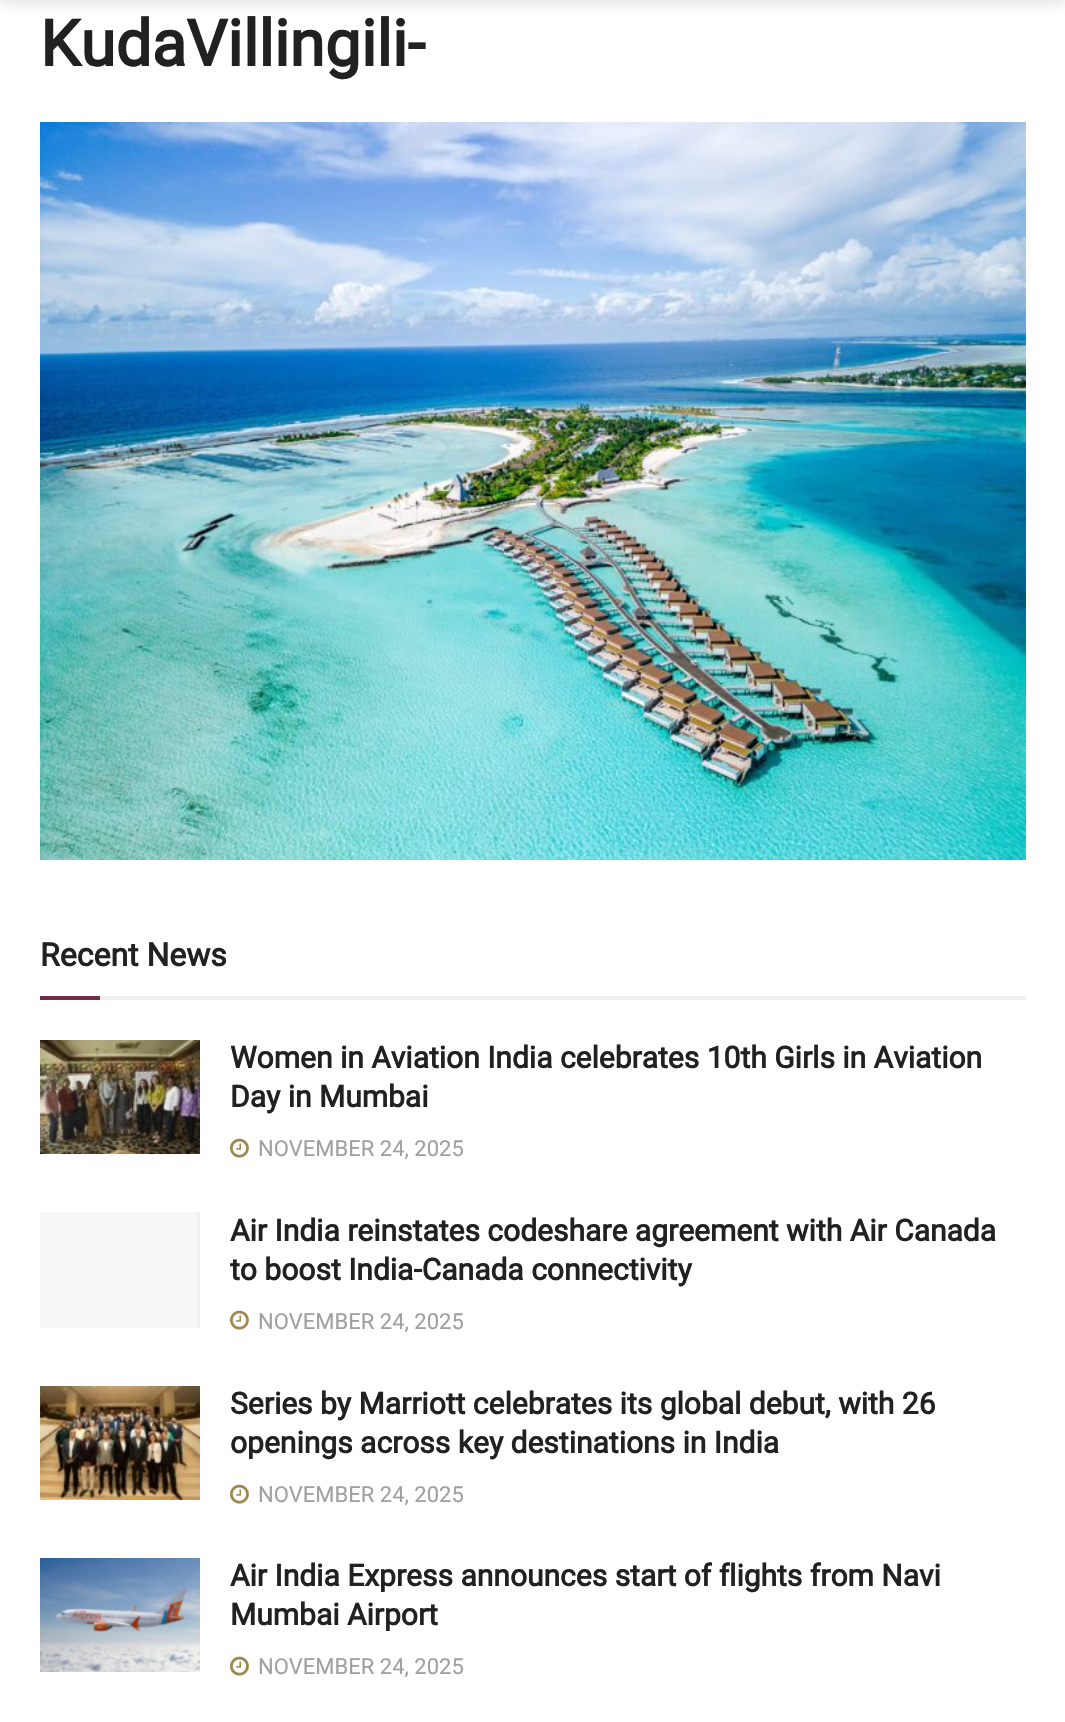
void draw(SkCanvas* canvas) {
    SkPaint paint;
    paint.setAntiAlias(true);
    canvas->clear(0xFFFFFFFF);
    paint.setColor(0x1A000000);
    paint.setMaskFilter(SkMaskFilter::MakeBlur(kNormal_SkBlurStyle, 6));
    canvas->drawRect(SkRect::MakeXYWH(0, -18, 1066, 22), paint);
    paint.setMaskFilter(nullptr);
    SkFont font1(fontMgr->matchFamilyStyle("Roboto", SkFontStyle::Bold()), 64);
    font1.setSubpixel(true);
    paint.setColor(0xFF212121);
    canvas->drawString("KudaVillingili-", 40, 66, font1, paint);
    canvas->drawImageRect(SkImages::DeferredFromEncodedData(SkData::MakeFromFileName("img1.png")), SkRect::MakeXYWH(40, 122, 986, 738), SkSamplingOptions());
    paint.setColor(0xFFEEEEEE);
    canvas->drawRect(SkRect::MakeXYWH(100, 996, 926, 4), paint);
    SkFont font2(fontMgr->matchFamilyStyle("Roboto", SkFontStyle::Bold()), 32);
    font2.setSubpixel(true);
    paint.setColor(0xFF212121);
    canvas->drawString("Recent News", 40, 966, font2, paint);
    paint.setColor(0xFF712C4B);
    canvas->drawRect(SkRect::MakeXYWH(40, 996, 60, 4), paint);
    canvas->drawImageRect(SkImages::DeferredFromEncodedData(SkData::MakeFromFileName("img2.png")), SkRect::MakeXYWH(40, 1040, 160, 114), SkSamplingOptions());
    SkFont font3(fontMgr->matchFamilyStyle("Roboto", SkFontStyle::Bold()), 30);
    font3.setSubpixel(true);
    paint.setColor(0xFF212121);
    canvas->drawString("Women in Aviation India celebrates 10th Girls in Aviation", 230, 1068, font3, paint);
    canvas->drawString("Day in Mumbai", 230, 1107, font3, paint);
    canvas->drawImageRect(SkImages::DeferredFromEncodedData(SkData::MakeFromFileName("img3.png")), SkRect::MakeXYWH(230, 1138, 19, 20), SkSamplingOptions());
    SkFont font4(fontMgr->matchFamilyStyle("Roboto", SkFontStyle::Normal()), 22);
    font4.setSubpixel(true);
    paint.setColor(0xFFA0A0A0);
    canvas->drawString("NOVEMBER 24, 2025", 258, 1156, font4, paint);
    paint.setColor(0xFFF7F7F7);
    canvas->drawRect(SkRect::MakeXYWH(40, 1212, 157, 116), paint);
    paint.setColor(0xFFF1F1F1);
    canvas->drawRect(SkRect::MakeXYWH(197, 1212, 3, 116), paint);
    paint.setColor(0xFF212121);
    canvas->drawString("Air India reinstates codeshare agreement with Air Canada", 230, 1241, font3, paint);
    canvas->drawString("to boost India-Canada connectivity", 230, 1280, font3, paint);
    canvas->drawImageRect(SkImages::DeferredFromEncodedData(SkData::MakeFromFileName("img3.png")), SkRect::MakeXYWH(230, 1310, 19, 20), SkSamplingOptions());
    paint.setColor(0xFFA0A0A0);
    canvas->drawString("NOVEMBER 24, 2025", 258, 1329, font4, paint);
    canvas->drawImageRect(SkImages::DeferredFromEncodedData(SkData::MakeFromFileName("img4.png")), SkRect::MakeXYWH(40, 1386, 160, 114), SkSamplingOptions());
    paint.setColor(0xFF212121);
    canvas->drawString("Series by Marriott celebrates its global debut, with 26", 230, 1414, font3, paint);
    canvas->drawString("openings across key destinations in India", 230, 1453, font3, paint);
    canvas->drawImageRect(SkImages::DeferredFromEncodedData(SkData::MakeFromFileName("img3.png")), SkRect::MakeXYWH(230, 1484, 19, 20), SkSamplingOptions());
    paint.setColor(0xFFA0A0A0);
    canvas->drawString("NOVEMBER 24, 2025", 258, 1502, font4, paint);
    canvas->drawImageRect(SkImages::DeferredFromEncodedData(SkData::MakeFromFileName("img5.png")), SkRect::MakeXYWH(40, 1558, 160, 114), SkSamplingOptions());
    paint.setColor(0xFF212121);
    canvas->drawString("Air India Express announces start of flights from Navi", 230, 1586, font3, paint);
    canvas->drawString("Mumbai Airport", 230, 1625, font3, paint);
    canvas->drawImageRect(SkImages::DeferredFromEncodedData(SkData::MakeFromFileName("img3.png")), SkRect::MakeXYWH(230, 1656, 19, 20), SkSamplingOptions());
    paint.setColor(0xFFA0A0A0);
    canvas->drawString("NOVEMBER 24, 2025", 258, 1674, font4, paint);
}
